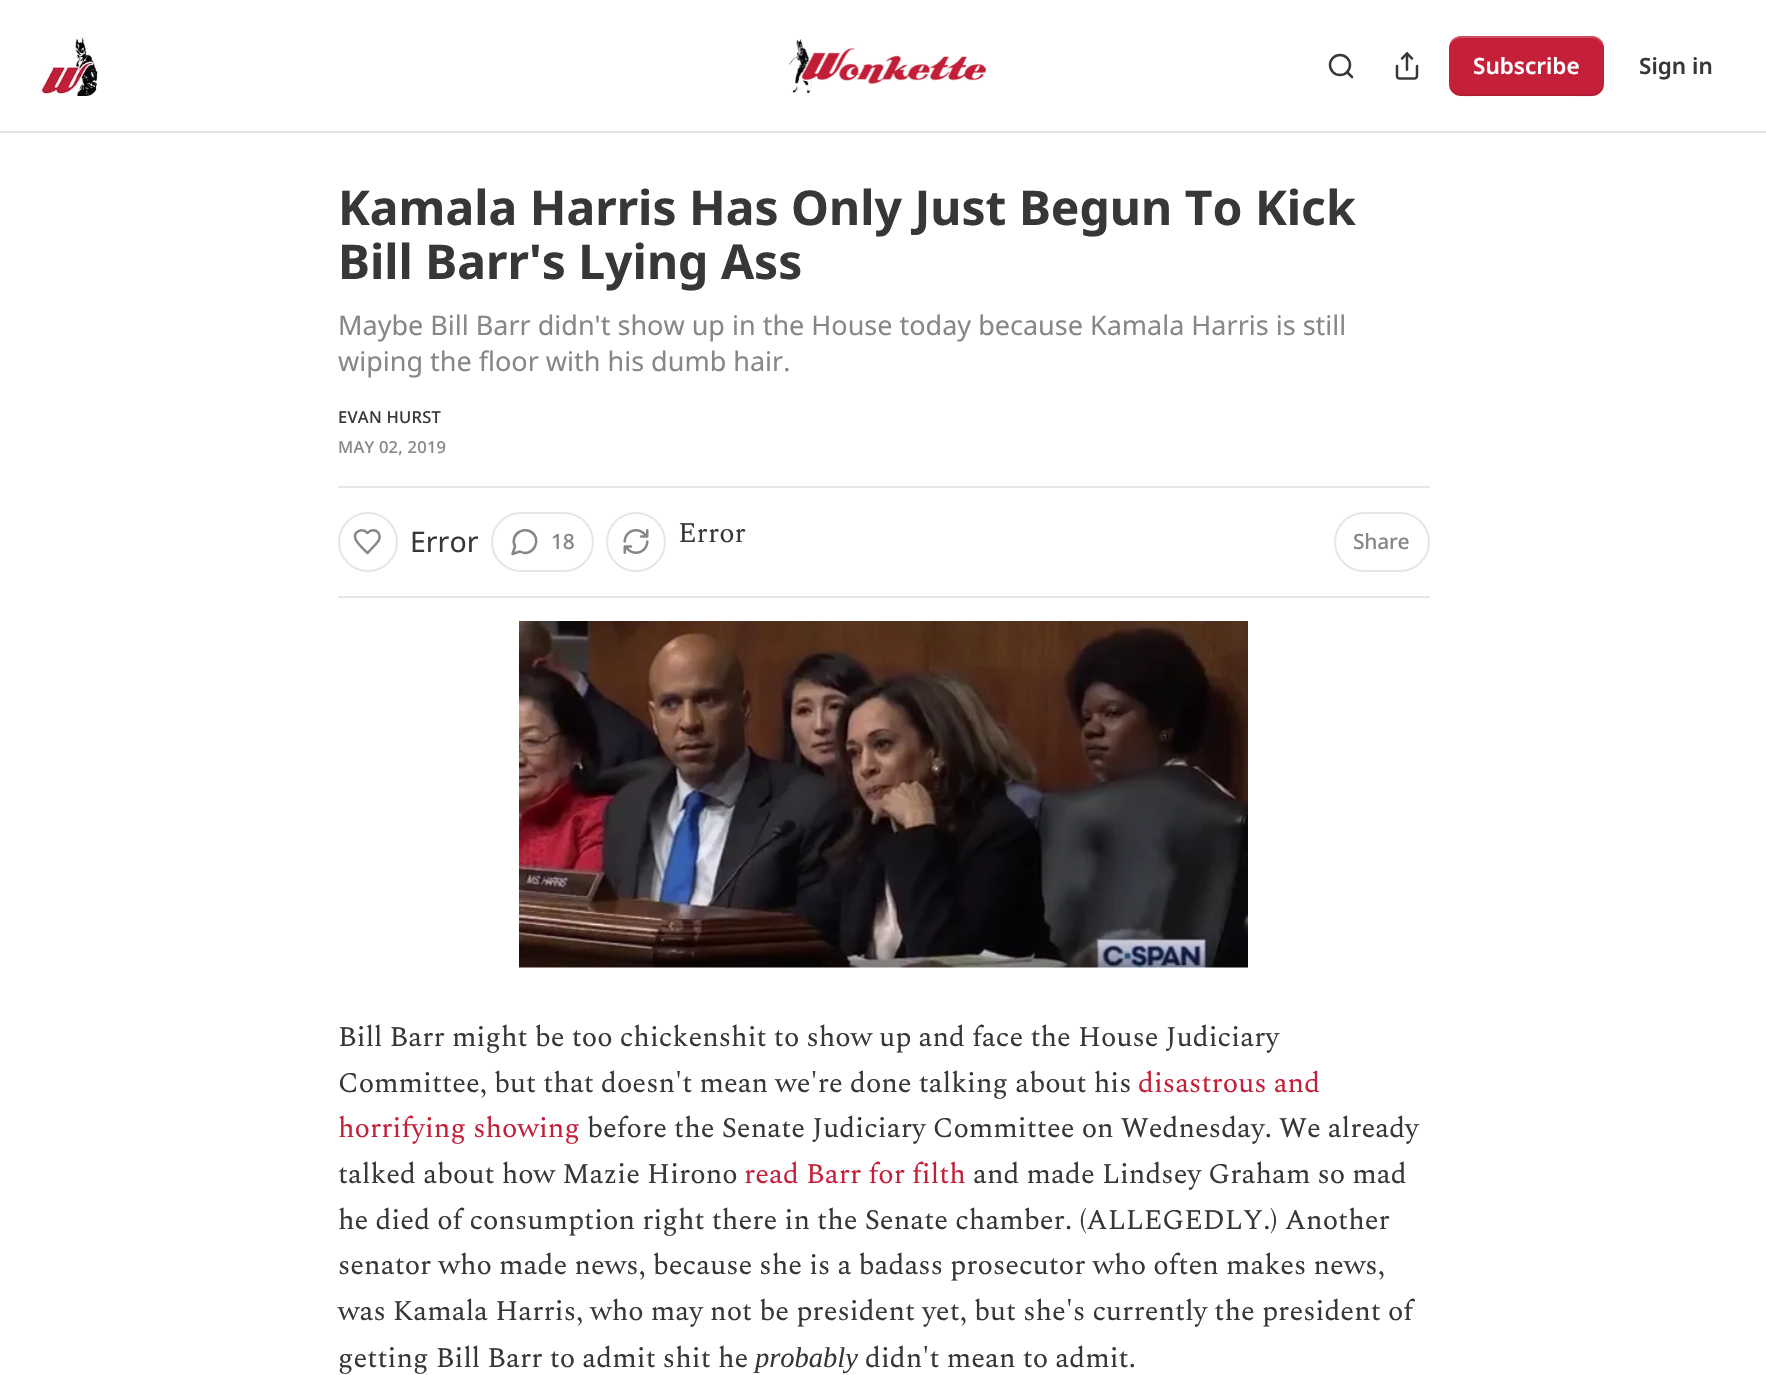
void draw(SkCanvas* canvas) {
    SkPaint paint;
    paint.setAntiAlias(true);
    auto spacedText = [&](const char* s, float x, float y, const SkFont& font, const SkPaint& ink, float letter, float word) {
        std::vector<SkGlyphID> glyphs(font.countText(s, strlen(s), SkTextEncoding::kUTF8));
        std::vector<float> xs(glyphs.size());
        font.textToGlyphs(s, strlen(s), SkTextEncoding::kUTF8, glyphs);
        font.getXPos(glyphs, xs, x);
        float extra = 0;
        for (size_t i = 0; i < glyphs.size(); i++) {
            xs[i] += extra;
            extra += letter + word * (glyphs[i] == font.unicharToGlyph(' '));
        }
        canvas->drawTextBlob(SkTextBlob::MakeFromPosHGlyphs(glyphs, xs, y, font), 0, 0, ink);
    };
    canvas->clear(0xFFFFFFFF);
    paint.setColor(0xFFE6E6E6);
    canvas->drawRect(SkRect::MakeXYWH(0, 131, 1766, 2), paint);
    canvas->drawImageRect(SkImages::DeferredFromEncodedData(SkData::MakeFromFileName("img1.png")), SkRect::MakeXYWH(38, 36, 60, 60), SkSamplingOptions());
    canvas->drawImageRect(SkImages::DeferredFromEncodedData(SkData::MakeFromFileName("img2.png")), SkRect::MakeXYWH(789, 39, 197, 54), SkSamplingOptions());
    paint.setStyle(SkPaint::kStroke_Style);
    paint.setStrokeWidth(2.5f);
    paint.setColor(0xFF363737);
    canvas->drawCircle(1340, 65, 10, paint);
    paint.setStrokeCap(SkPaint::kRound_Cap);
    paint.setStrokeJoin(SkPaint::kRound_Join);
    canvas->drawPath(SkPathBuilder().moveTo(1352, 77).lineTo(1347, 72).detach(), paint);
    canvas->drawImageRect(SkImages::DeferredFromEncodedData(SkData::MakeFromFileName("img3.png")), SkRect::MakeXYWH(1395, 52, 24, 28), SkSamplingOptions());
    paint.setStyle(SkPaint::kFill_Style);
    paint.setColor(0xFFC4203A);
    canvas->drawRoundRect(SkRect::MakeXYWH(1449, 36, 155, 60), 12, 12, paint);
    paint.setColor(0x1A000000);
    canvas->drawPath(SkPathBuilder().moveTo(1449, 82).cubicTo(1449, 101, 1469, 96, 1483, 96).lineTo(1570, 96).cubicTo(1584, 96, 1604, 101, 1604, 82).cubicTo(1604, 89, 1598, 94, 1592, 94).lineTo(1461, 94).cubicTo(1454, 94, 1449, 89, 1449, 82).close().detach(), paint);
    paint.setColor(0x33FFFFFF);
    canvas->drawPath(SkPathBuilder().moveTo(1461, 38).lineTo(1592, 38).cubicTo(1598, 38, 1604, 43, 1604, 50).cubicTo(1604, 31, 1584, 36, 1570, 36).lineTo(1483, 36).cubicTo(1469, 36, 1449, 31, 1449, 50).cubicTo(1449, 43, 1454, 38, 1461, 38).close().detach(), paint);
    SkFont font1(fontMgr->matchFamilyStyle("Noto Sans", SkFontStyle(600, SkFontStyle::kNormal_Width, SkFontStyle::kUpright_Slant)), 22.5f);
    font1.setSubpixel(true);
    paint.setColor(0xFFFFFFFF);
    canvas->drawString("Subscribe", 1473, 74, font1, paint);
    paint.setColor(0xFF363737);
    canvas->drawString("Sign in", 1639, 74, font1, paint);
    SkFont font2(fontMgr->matchFamilyStyle("Noto Sans", SkFontStyle::Bold()), 48);
    font2.setSubpixel(true);
    canvas->drawString("Kamala Harris Has Only Just Begun To Kick", 338, 225, font2, paint);
    canvas->drawString("Bill Barr's Lying Ass", 338, 279, font2, paint);
    SkFont font3(fontMgr->matchFamilyStyle("Noto Sans", SkFontStyle::Normal()), 27);
    font3.setSubpixel(true);
    paint.setColor(0xFF868787);
    canvas->drawString("Maybe Bill Barr didn't show up in the House today because Kamala Harris is still", 338, 335, font3, paint);
    canvas->drawString("wiping the floor with his dumb hair.", 338, 371, font3, paint);
    SkFont font4(fontMgr->matchFamilyStyle("Noto Sans", SkFontStyle(500, SkFontStyle::kNormal_Width, SkFontStyle::kUpright_Slant)), 16.5f);
    font4.setSubpixel(true);
    paint.setColor(0xFF363737);
    spacedText("EVAN HURST", 338, 423, font4, paint, 0.25f, 0);
    paint.setColor(0xFF868787);
    spacedText("MAY 02, 2019", 338, 453, font4, paint, 0.25f, 0);
    paint.setColor(0xFFE6E6E6);
    canvas->drawRect(SkRect::MakeXYWH(338, 486, 1092, 2), paint);
    canvas->drawRect(SkRect::MakeXYWH(338, 596, 1092, 2), paint);
    paint.setStyle(SkPaint::kStroke_Style);
    paint.setStrokeWidth(2);
    paint.setStrokeCap(SkPaint::kButt_Cap);
    paint.setStrokeJoin(SkPaint::kMiter_Join);
    canvas->drawCircle(368, 542, 29, paint);
    paint.setStrokeWidth(2.5f);
    paint.setStrokeCap(SkPaint::kRound_Cap);
    paint.setStrokeJoin(SkPaint::kRound_Join);
    paint.setColor(0xFF868787);
    canvas->drawPath(SkPathBuilder().moveTo(376, 544).cubicTo(385.5f, 535, 374.5f, 525.5f, 367.5f, 533).cubicTo(362, 527.5f, 353, 531.5f, 355.5f, 539).cubicTo(356.5f, 543, 364.5f, 550, 367.5f, 553).close().detach(), paint);
    SkFont font5(fontMgr->matchFamilyStyle("Noto Sans", SkFontStyle::Normal()), 28.5f);
    font5.setSubpixel(true);
    paint.setStyle(SkPaint::kFill_Style);
    paint.setColor(0xFF363737);
    canvas->drawString("Error", 410, 552, font5, paint);
    paint.setStyle(SkPaint::kStroke_Style);
    paint.setStrokeWidth(2);
    paint.setStrokeCap(SkPaint::kButt_Cap);
    paint.setStrokeJoin(SkPaint::kMiter_Join);
    paint.setColor(0xFFE6E6E6);
    canvas->drawRoundRect(SkRect::MakeXYWH(492, 513, 101, 58), 29, 29, paint);
    paint.setStrokeWidth(2.5f);
    paint.setStrokeCap(SkPaint::kRound_Cap);
    paint.setStrokeJoin(SkPaint::kRound_Join);
    paint.setColor(0xFF868787);
    canvas->drawPath(SkPathBuilder().moveTo(520, 551.5f).cubicTo(533.5f, 558.5f, 543.5f, 537.5f, 529.5f, 531).cubicTo(526.5f, 530, 523, 530, 520, 531.5f).cubicTo(514.5f, 534, 512, 541, 515, 546.5f).lineTo(512.5f, 554).close().detach(), paint);
    SkFont font6(fontMgr->matchFamilyStyle("Noto Sans", SkFontStyle(500, SkFontStyle::kNormal_Width, SkFontStyle::kUpright_Slant)), 21);
    font6.setSubpixel(true);
    paint.setStyle(SkPaint::kFill_Style);
    spacedText("18", 551, 549, font6, paint, -0.25f, 0);
    paint.setStyle(SkPaint::kStroke_Style);
    paint.setStrokeWidth(2);
    paint.setStrokeCap(SkPaint::kButt_Cap);
    paint.setStrokeJoin(SkPaint::kMiter_Join);
    paint.setColor(0xFFE6E6E6);
    canvas->drawCircle(636, 542, 29, paint);
    canvas->drawImageRect(SkImages::DeferredFromEncodedData(SkData::MakeFromFileName("img4.png")), SkRect::MakeXYWH(623, 529, 26, 25), SkSamplingOptions());
    SkFont font7(fontMgr->matchFamilyStyle("Spectral", SkFontStyle::Normal()), 28.5f);
    font7.setSubpixel(true);
    paint.setStyle(SkPaint::kFill_Style);
    paint.setColor(0xFF363737);
    canvas->drawString("Error", 678, 542, font7, paint);
    paint.setStyle(SkPaint::kStroke_Style);
    paint.setColor(0xFFE6E6E6);
    canvas->drawRoundRect(SkRect::MakeXYWH(1335, 513, 94, 58), 29, 29, paint);
    paint.setStyle(SkPaint::kFill_Style);
    paint.setColor(0xFF868787);
    spacedText("Share", 1353, 549, font6, paint, -0.25f, 0);
    canvas->drawImageRect(SkImages::DeferredFromEncodedData(SkData::MakeFromFileName("img5.png")), SkRect::MakeXYWH(519, 621, 729, 347), SkSamplingOptions());
    paint.setColor(0xFF363737);
    canvas->drawString("Bill Barr might be too chickenshit to show up and face the House Judiciary", 338, 1046, font7, paint);
    canvas->drawString("Committee, but that doesn't mean we're done talking about his", 338, 1092, font7, paint);
    paint.setColor(0xFFC4203A);
    canvas->drawString("disastrous and", 1138, 1092, font7, paint);
    canvas->drawString("horrifying showing", 338, 1137, font7, paint);
    paint.setColor(0xFF363737);
    canvas->drawString("before the Senate Judiciary Committee on Wednesday. We already", 587, 1137, font7, paint);
    canvas->drawString("talked about how Mazie Hirono", 338, 1183, font7, paint);
    paint.setColor(0xFFC4203A);
    canvas->drawString("read Barr for filth", 744, 1183, font7, paint);
    paint.setColor(0xFF363737);
    canvas->drawString("and made Lindsey Graham so mad", 973, 1183, font7, paint);
    canvas->drawString("he died of consumption right there in the Senate chamber. (ALLEGEDLY.) Another", 338, 1229, font7, paint);
    canvas->drawString("senator who made news, because she is a badass prosecutor who often makes news,", 338, 1274, font7, paint);
    canvas->drawString("was Kamala Harris, who may not be president yet, but she's currently the president of", 338, 1320, font7, paint);
    canvas->drawString("getting Bill Barr to admit shit he", 338, 1367, font7, paint);
    SkFont font8(fontMgr->matchFamilyStyle("Liberation Serif", SkFontStyle::Italic()), 28.5f);
    font8.setSubpixel(true);
    canvas->drawString("probably", 755, 1367, font8, paint);
    canvas->drawString("didn't mean to admit.", 865, 1367, font7, paint);
}
